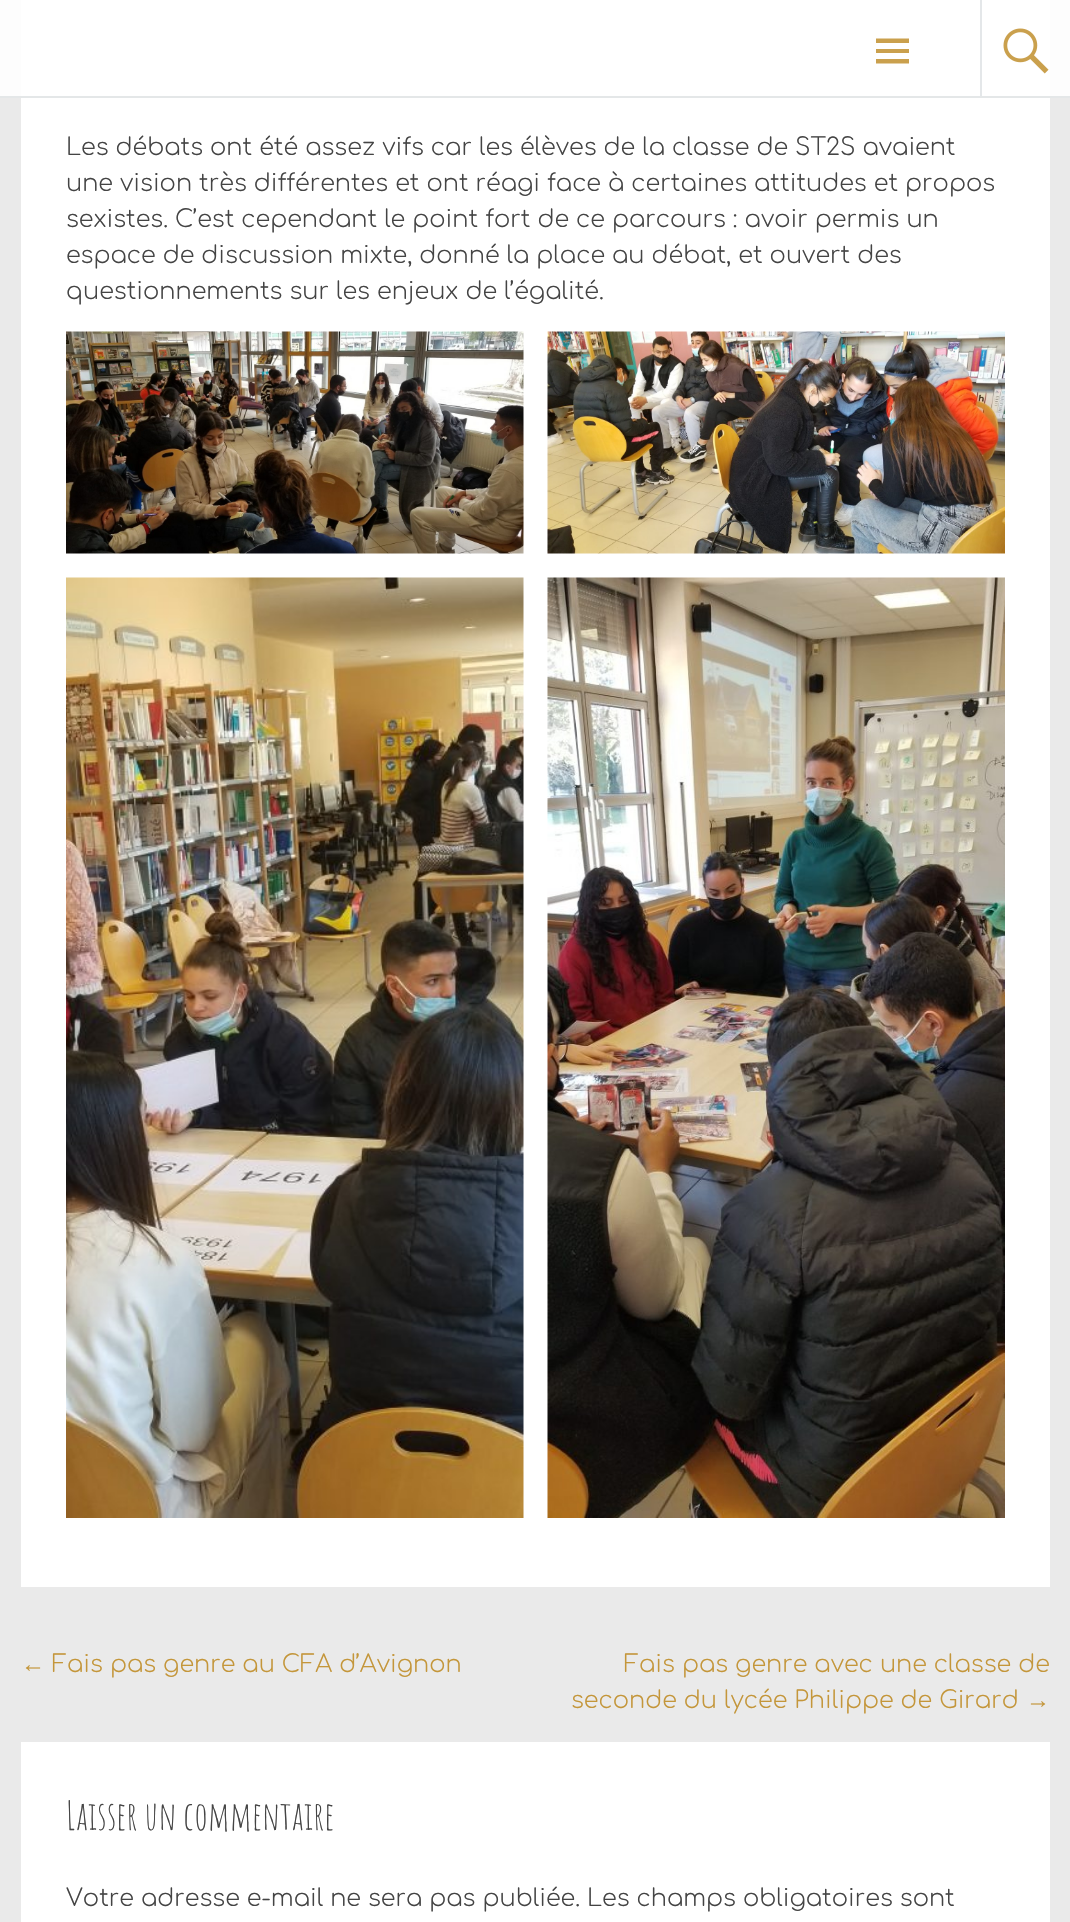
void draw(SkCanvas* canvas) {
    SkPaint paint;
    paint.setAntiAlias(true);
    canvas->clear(0xFFEAEAEA);
    paint.setColor(0xFFFFFFFF);
    canvas->drawRect(SkRect::MakeXYWH(21, 0, 1029, 1587), paint);
    paint.setColor(0xE6FFFFFF);
    canvas->drawRect(SkRect::MakeXYWH(0, 0, 1070, 98), paint);
    paint.setColor(0xE6E1E4E6);
    canvas->drawRect(SkRect::MakeXYWH(0, 96, 1070, 2), paint);
    paint.setColor(0xE6C4963A);
    canvas->drawPath(SkPathBuilder().moveTo(876, 63.5f).lineTo(876, 59).lineTo(909, 59).lineTo(909, 63.5f).close().moveTo(876, 38.5f).lineTo(909, 38.5f).lineTo(909, 43).lineTo(876, 43).close().moveTo(876, 53).lineTo(876, 49).lineTo(909, 49).lineTo(909, 53).close().detach(), paint);
    paint.setColor(0xFFE4E7E9);
    canvas->drawRect(SkRect::MakeXYWH(980, 0, 2, 96), paint);
    canvas->drawImageRect(SkImages::DeferredFromEncodedData(SkData::MakeFromFileName("img1.png")), SkRect::MakeXYWH(1003, 28, 46, 46), SkSamplingOptions());
    SkFont font1(fontMgr->matchFamilyStyle("Comfortaa", SkFontStyle(300, SkFontStyle::kNormal_Width, SkFontStyle::kUpright_Slant)), 24);
    font1.setSubpixel(true);
    paint.setColor(0xFF444444);
    canvas->drawString("Les débats ont été assez vifs car les élèves de la classe de ST2S avaient", 66, 155, font1, paint);
    canvas->drawString("une vision très différentes et ont réagi face à certaines attitudes et propos", 66, 191, font1, paint);
    canvas->drawString("sexistes. C’est cependant le point fort de ce parcours : avoir permis un", 66, 227, font1, paint);
    canvas->drawString("espace de discussion mixte, donné la place au débat, et ouvert des", 66, 263, font1, paint);
    canvas->drawString("questionnements sur les enjeux de l’égalité.", 66, 299, font1, paint);
    canvas->drawImageRect(SkImages::DeferredFromEncodedData(SkData::MakeFromFileName("img2.png")), SkRect::MakeXYWH(66, 331, 458, 223), SkSamplingOptions());
    canvas->drawImageRect(SkImages::DeferredFromEncodedData(SkData::MakeFromFileName("img3.png")), SkRect::MakeXYWH(547, 331, 458, 223), SkSamplingOptions());
    canvas->drawImageRect(SkImages::DeferredFromEncodedData(SkData::MakeFromFileName("img4.png")), SkRect::MakeXYWH(66, 577, 458, 941), SkSamplingOptions());
    canvas->drawImageRect(SkImages::DeferredFromEncodedData(SkData::MakeFromFileName("img5.png")), SkRect::MakeXYWH(547, 577, 458, 941), SkSamplingOptions());
    SkFont font2(fontMgr->matchFamilyStyle("Liberation Serif", SkFontStyle::Normal()), 24);
    font2.setSubpixel(true);
    paint.setColor(0xFFC4963A);
    canvas->drawString("←", 21, 1672, font2, paint);
    canvas->drawString("Fais pas genre au CFA d’Avignon", 52, 1672, font1, paint);
    canvas->drawString("Fais pas genre avec une classe de", 624, 1672, font1, paint);
    canvas->drawString("seconde du lycée Philippe de Girard", 571, 1708, font1, paint);
    canvas->drawString("→", 1026, 1708, font2, paint);
    paint.setColor(0xFFFFFFFF);
    canvas->drawRect(SkRect::MakeXYWH(21, 1742, 1029, 180), paint);
    SkFont font3(fontMgr->matchFamilyStyle("Amatic SC", SkFontStyle::Normal()), 39);
    font3.setSubpixel(true);
    paint.setColor(0xFF444444);
    canvas->drawString("Laisser un commentaire", 66, 1830, font3, paint);
    canvas->drawString("Votre adresse e-mail ne sera pas publiée. Les champs obligatoires sont", 66, 1906, font1, paint);
}
